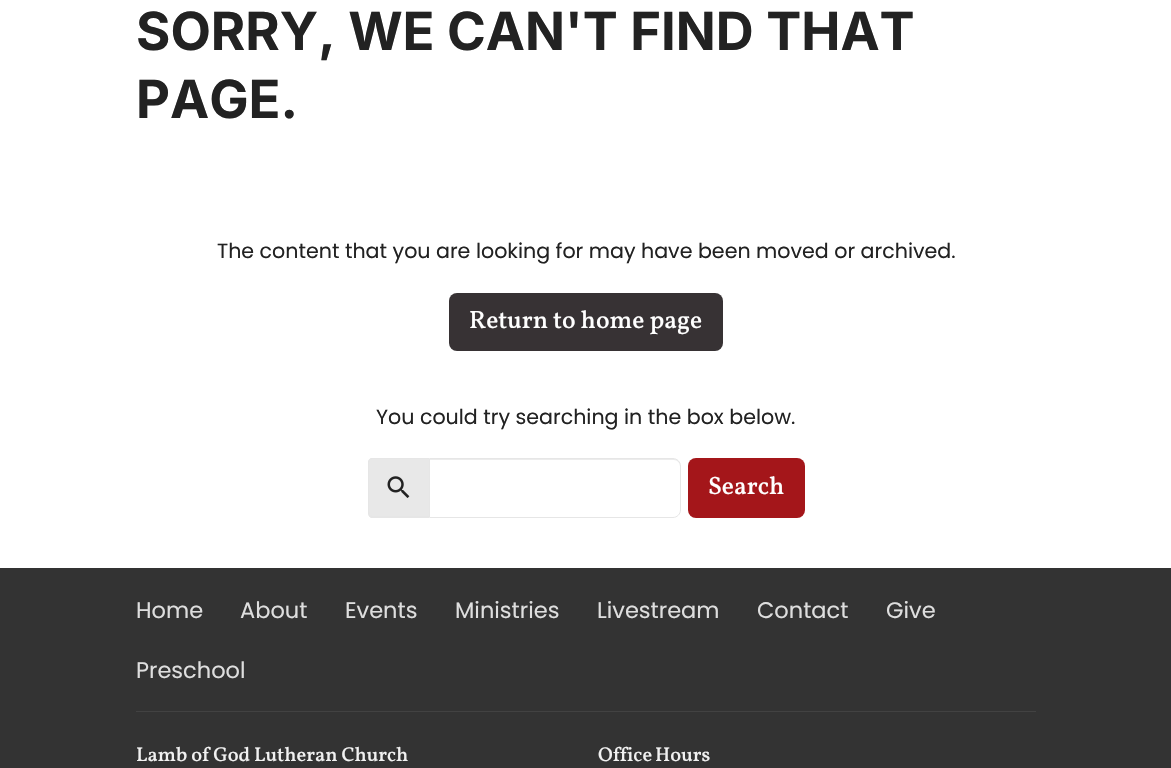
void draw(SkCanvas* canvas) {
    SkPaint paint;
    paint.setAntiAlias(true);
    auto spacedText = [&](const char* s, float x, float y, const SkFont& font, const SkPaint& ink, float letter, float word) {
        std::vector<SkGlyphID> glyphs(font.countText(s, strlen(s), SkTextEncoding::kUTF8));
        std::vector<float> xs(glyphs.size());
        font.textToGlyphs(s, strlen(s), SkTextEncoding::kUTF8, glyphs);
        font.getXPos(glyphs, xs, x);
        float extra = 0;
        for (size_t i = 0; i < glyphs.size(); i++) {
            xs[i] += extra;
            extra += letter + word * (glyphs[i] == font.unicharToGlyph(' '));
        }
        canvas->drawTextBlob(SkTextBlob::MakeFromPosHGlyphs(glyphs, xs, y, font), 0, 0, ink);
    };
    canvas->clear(0xFFFFFFFF);
    SkFont font1(fontMgr->matchFamilyStyle("Inter", SkFontStyle::Bold()), 52.5f);
    font1.setSubpixel(true);
    paint.setColor(0xFF222222);
    canvas->drawString("SORRY, WE CAN'T FIND THAT", 136, 50, font1, paint);
    canvas->drawString("PAGE.", 136, 118, font1, paint);
    SkFont font2(fontMgr->matchFamilyStyle("Poppins", SkFontStyle::Normal()), 20.6f);
    font2.setSubpixel(true);
    canvas->drawString("The content that you are looking for may have been moved or archived.", 217, 258, font2, paint);
    paint.setColor(0xFF373234);
    canvas->drawRoundRect(SkRect::MakeXYWH(449, 293, 274, 58), 8, 8, paint);
    SkFont font3(fontMgr->matchFamilyStyle("Vollkorn", SkFontStyle(500, SkFontStyle::kNormal_Width, SkFontStyle::kUpright_Slant)), 25);
    font3.setSubpixel(true);
    paint.setColor(0xFFFFFFFF);
    canvas->drawString("Return to home page", 469, 328, font3, paint);
    paint.setColor(0xFF222222);
    canvas->drawString("You could try searching in the box below.", 376, 424, font2, paint);
    paint.setColor(0xFFE8E8E8);
    canvas->drawPath(SkPathBuilder().moveTo(373, 458).lineTo(429, 458).lineTo(429, 518).lineTo(373, 518).cubicTo(370, 518, 368, 516, 368, 513).lineTo(368, 463).cubicTo(368, 460, 370, 458, 373, 458).close().detach(), paint);
    paint.setColor(0xFFE6E6E6);
    canvas->drawPath(SkPathBuilder(SkPathFillType::kEvenOdd).moveTo(372, 458).lineTo(429, 458).lineTo(429, 518).lineTo(372, 518).cubicTo(370, 518, 368, 515, 368, 512).lineTo(368, 462).cubicTo(368, 460, 370, 458, 372, 458).close().moveTo(372, 459).lineTo(429, 459).lineTo(429, 516).lineTo(372, 516).cubicTo(370, 516, 369, 515, 369, 512).lineTo(369, 462).cubicTo(369, 460, 370, 459, 372, 459).close().detach(), paint);
    canvas->drawImageRect(SkImages::DeferredFromEncodedData(SkData::MakeFromFileName("img1.png")), SkRect::MakeXYWH(387, 476, 23, 22), SkSamplingOptions());
    paint.setColor(0xFFECECEC);
    canvas->drawPath(SkPathBuilder().moveTo(430, 460).lineTo(674, 460).cubicTo(677, 460, 680, 463, 680, 466).cubicTo(680, 462, 678, 459, 674, 459).lineTo(430, 459).close().detach(), paint);
    paint.setStyle(SkPaint::kStroke_Style);
    paint.setStrokeWidth(1);
    paint.setColor(0xFFE6E6E6);
    canvas->drawPath(SkPathBuilder().moveTo(429.5f, 458.5f).lineTo(673, 458.5f).cubicTo(677, 458.5f, 680.5f, 462, 680.5f, 466).lineTo(680.5f, 510).cubicTo(680.5f, 514, 677, 517.5f, 673, 517.5f).lineTo(429.5f, 517.5f).close().detach(), paint);
    paint.setStyle(SkPaint::kFill_Style);
    paint.setColor(0xFFA4161A);
    canvas->drawRoundRect(SkRect::MakeXYWH(688, 458, 117, 60), 8, 8, paint);
    paint.setColor(0xFFFFFFFF);
    canvas->drawString("Search", 708, 494, font3, paint);
    paint.setColor(0xFF333333);
    canvas->drawRect(SkRect::MakeXYWH(0, 568, 1171, 200), paint);
    SkFont font4(fontMgr->matchFamilyStyle("Poppins", SkFontStyle::Normal()), 22.5f);
    font4.setSubpixel(true);
    paint.setColor(0xFFDEDEDE);
    canvas->drawString("Home", 136, 618, font4, paint);
    canvas->drawString("About", 240, 618, font4, paint);
    canvas->drawString("Events", 345, 618, font4, paint);
    canvas->drawString("Ministries", 455, 618, font4, paint);
    canvas->drawString("Livestream", 597, 618, font4, paint);
    canvas->drawString("Contact", 757, 618, font4, paint);
    canvas->drawString("Give", 886, 618, font4, paint);
    canvas->drawString("Preschool", 136, 678, font4, paint);
    paint.setColor(0xFF424242);
    canvas->drawRect(SkRect::MakeXYWH(136, 711, 900, 1), paint);
    SkFont font5(fontMgr->matchFamilyStyle("Vollkorn", SkFontStyle(500, SkFontStyle::kNormal_Width, SkFontStyle::kUpright_Slant)), 20);
    font5.setSubpixel(true);
    paint.setColor(0xFFF1F1F1);
    canvas->drawString("Lamb of God Lutheran Church", 136, 761, font5, paint);
    spacedText("Office Hours", 598, 761, font5, paint, 0, -1);
}
